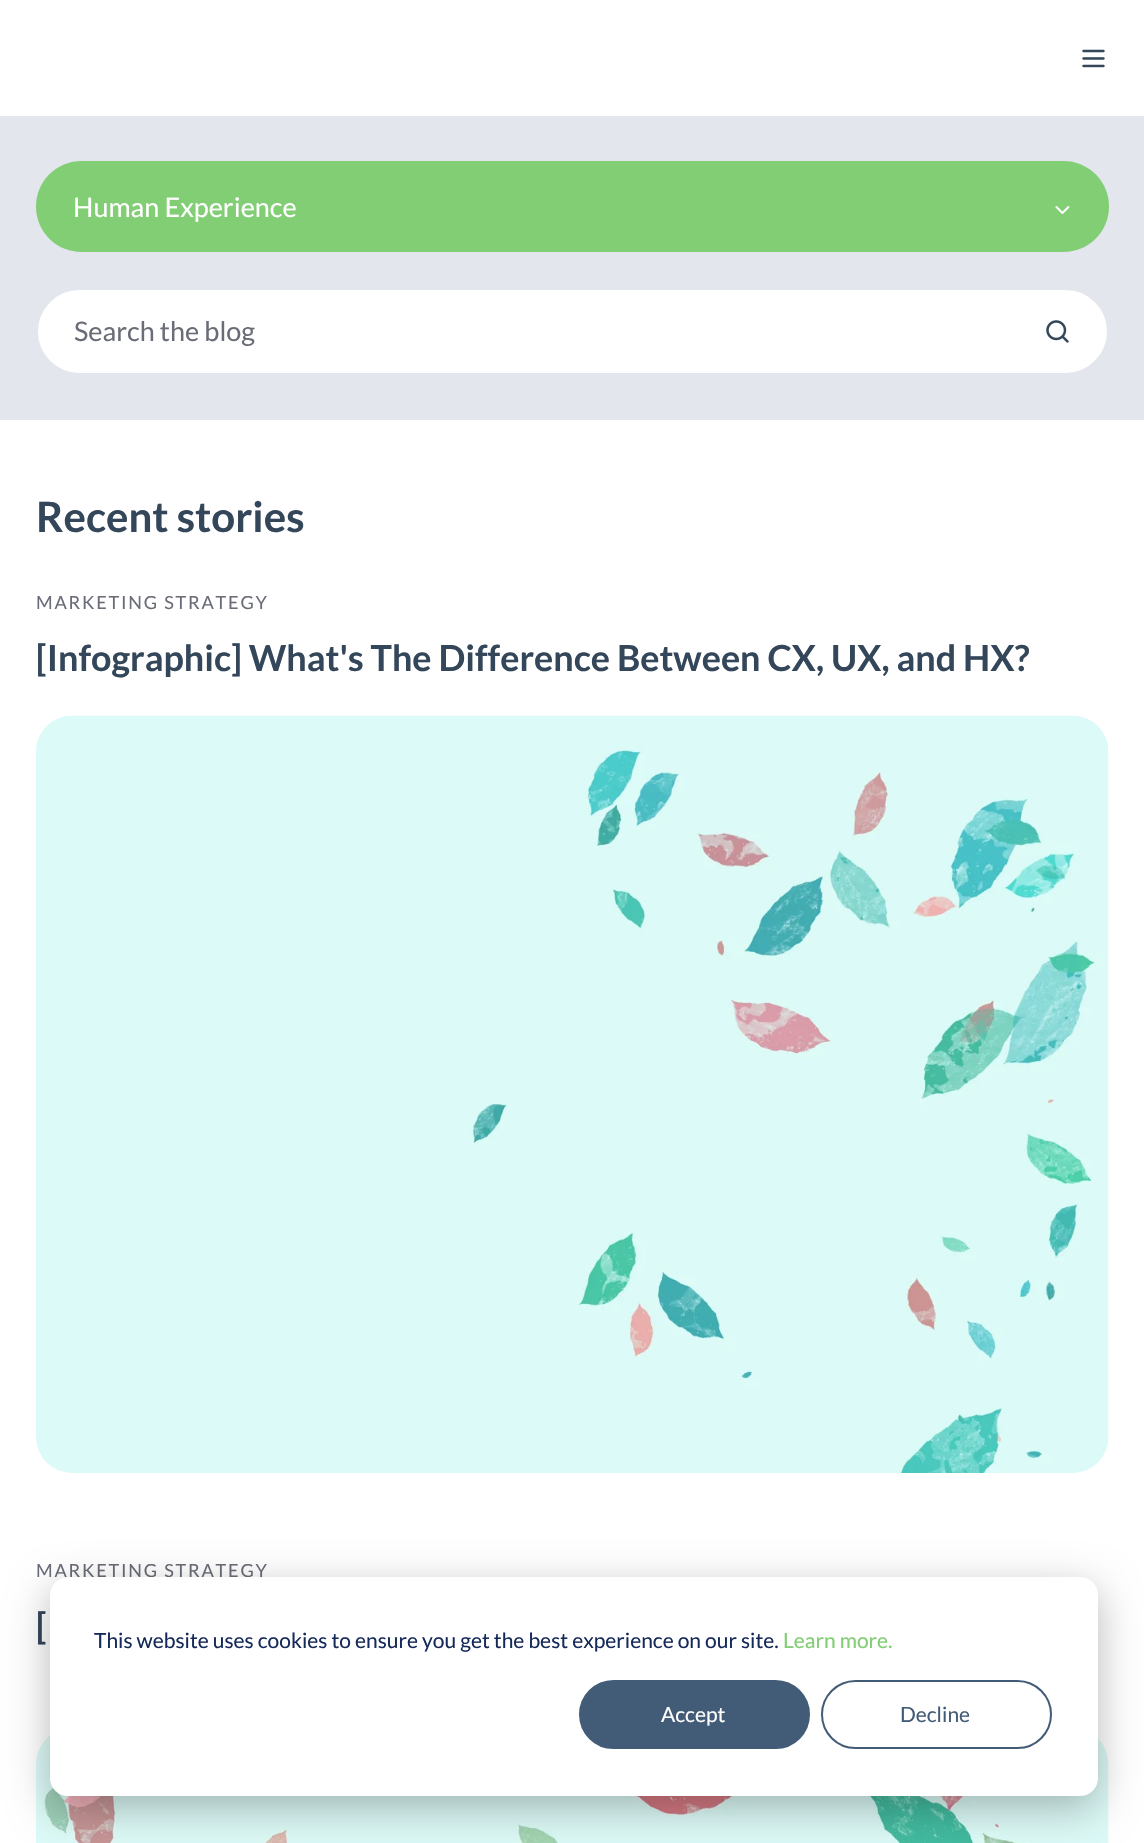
void draw(SkCanvas* canvas) {
    SkPaint paint;
    paint.setAntiAlias(true);
    auto spacedText = [&](const char* s, float x, float y, const SkFont& font, const SkPaint& ink, float letter, float word) {
        std::vector<SkGlyphID> glyphs(font.countText(s, strlen(s), SkTextEncoding::kUTF8));
        std::vector<float> xs(glyphs.size());
        font.textToGlyphs(s, strlen(s), SkTextEncoding::kUTF8, glyphs);
        font.getXPos(glyphs, xs, x);
        float extra = 0;
        for (size_t i = 0; i < glyphs.size(); i++) {
            xs[i] += extra;
            extra += letter + word * (glyphs[i] == font.unicharToGlyph(' '));
        }
        canvas->drawTextBlob(SkTextBlob::MakeFromPosHGlyphs(glyphs, xs, y, font), 0, 0, ink);
    };
    canvas->clear(0xFFFFFFFF);
    canvas->drawImageRect(SkImages::DeferredFromEncodedData(SkData::MakeFromFileName("img1.png")), SkRect::MakeXYWH(1082, 49, 23, 19), SkSamplingOptions());
    paint.setColor(0xFFE3E6EC);
    canvas->drawRect(SkRect::MakeXYWH(0, 116, 1144, 304), paint);
    paint.setColor(0xFF81CE74);
    canvas->drawRoundRect(SkRect::MakeXYWH(36, 161, 1073, 91), 45.5f, 45.5f, paint);
    SkFont font1(fontMgr->matchFamilyStyle("Lato", SkFontStyle::Normal()), 27);
    font1.setSubpixel(true);
    paint.setColor(0xFFFFFFFF);
    canvas->drawString("Human Experience", 73, 217, font1, paint);
    canvas->drawImageRect(SkImages::DeferredFromEncodedData(SkData::MakeFromFileName("img2.png")), SkRect::MakeXYWH(1055, 206, 15, 8), SkSamplingOptions());
    canvas->drawRoundRect(SkRect::MakeXYWH(37, 289, 1071, 85), 42.5f, 42.5f, paint);
    paint.setStyle(SkPaint::kStroke_Style);
    paint.setStrokeWidth(2);
    paint.setColor(0xFFE3E6EC);
    canvas->drawRoundRect(SkRect::MakeXYWH(37, 289, 1071, 85), 42.5f, 42.5f, paint);
    paint.setStyle(SkPaint::kFill_Style);
    paint.setColor(0xFF6A6D77);
    canvas->drawString("Search the blog", 74, 341, font1, paint);
    canvas->drawImageRect(SkImages::DeferredFromEncodedData(SkData::MakeFromFileName("img3.png")), SkRect::MakeXYWH(1046, 320, 23, 23), SkSamplingOptions());
    SkFont font2(fontMgr->matchFamilyStyle("Lato", SkFontStyle::Bold()), 42);
    font2.setSubpixel(true);
    paint.setColor(0xFF34475A);
    canvas->drawString("Recent stories", 36, 532, font2, paint);
    SkFont font3(fontMgr->matchFamilyStyle("Lato", SkFontStyle::Normal()), 18.1f);
    font3.setSubpixel(true);
    paint.setColor(0xFF6A6D77);
    spacedText("MARKETING STRATEGY", 36, 609, font3, paint, 1.8f, 0);
    SkFont font4(fontMgr->matchFamilyStyle("Lato", SkFontStyle::Bold()), 35.9f);
    font4.setSubpixel(true);
    paint.setColor(0xFF34475A);
    canvas->drawString("[Infographic] What's The Difference Between CX, UX, and HX?", 36, 671, font4, paint);
    canvas->drawImageRect(SkImages::DeferredFromEncodedData(SkData::MakeFromFileName("img4.png")), SkRect::MakeXYWH(36, 715, 1073, 758), SkSamplingOptions());
    paint.setColor(0xFF6A6D77);
    spacedText("MARKETING STRATEGY", 36, 1577, font3, paint, 1.8f, 0);
    paint.setColor(0xFF34475A);
    canvas->drawString("[", 36, 1639, font4, paint);
    canvas->drawImageRect(SkImages::DeferredFromEncodedData(SkData::MakeFromFileName("img5.png")), SkRect::MakeXYWH(36, 1735, 1073, 108), SkSamplingOptions());
    paint.setColor(0x47000000);
    paint.setMaskFilter(SkMaskFilter::MakeBlur(kNormal_SkBlurStyle, 21));
    canvas->drawRoundRect(SkRect::MakeXYWH(50, 1589, 1048, 219), 18, 18, paint);
    paint.setMaskFilter(nullptr);
    paint.setColor(0xFFFFFFFF);
    canvas->drawRoundRect(SkRect::MakeXYWH(50, 1577, 1048, 219), 18, 18, paint);
    SkFont font5(fontMgr->matchFamilyStyle("Lato", SkFontStyle::Normal()), 21);
    font5.setSubpixel(true);
    paint.setColor(0xFF15295A);
    canvas->drawString("This website uses cookies to ensure you get the best experience on our site.", 94, 1648, font5, paint);
    paint.setColor(0xFF81CE74);
    canvas->drawString("Learn more.", 783, 1648, font5, paint);
    paint.setColor(0xFF425B76);
    canvas->drawRoundRect(SkRect::MakeXYWH(580, 1681, 229, 67), 33.5f, 33.5f, paint);
    paint.setStyle(SkPaint::kStroke_Style);
    canvas->drawRoundRect(SkRect::MakeXYWH(580, 1681, 229, 67), 33.5f, 33.5f, paint);
    paint.setStyle(SkPaint::kFill_Style);
    paint.setColor(0xFFFFFFFF);
    canvas->drawString("Accept", 661, 1722, font5, paint);
    paint.setStyle(SkPaint::kStroke_Style);
    paint.setColor(0xFF425B76);
    canvas->drawRoundRect(SkRect::MakeXYWH(822, 1681, 229, 67), 33.5f, 33.5f, paint);
    paint.setStyle(SkPaint::kFill_Style);
    canvas->drawString("Decline", 900, 1722, font5, paint);
}
